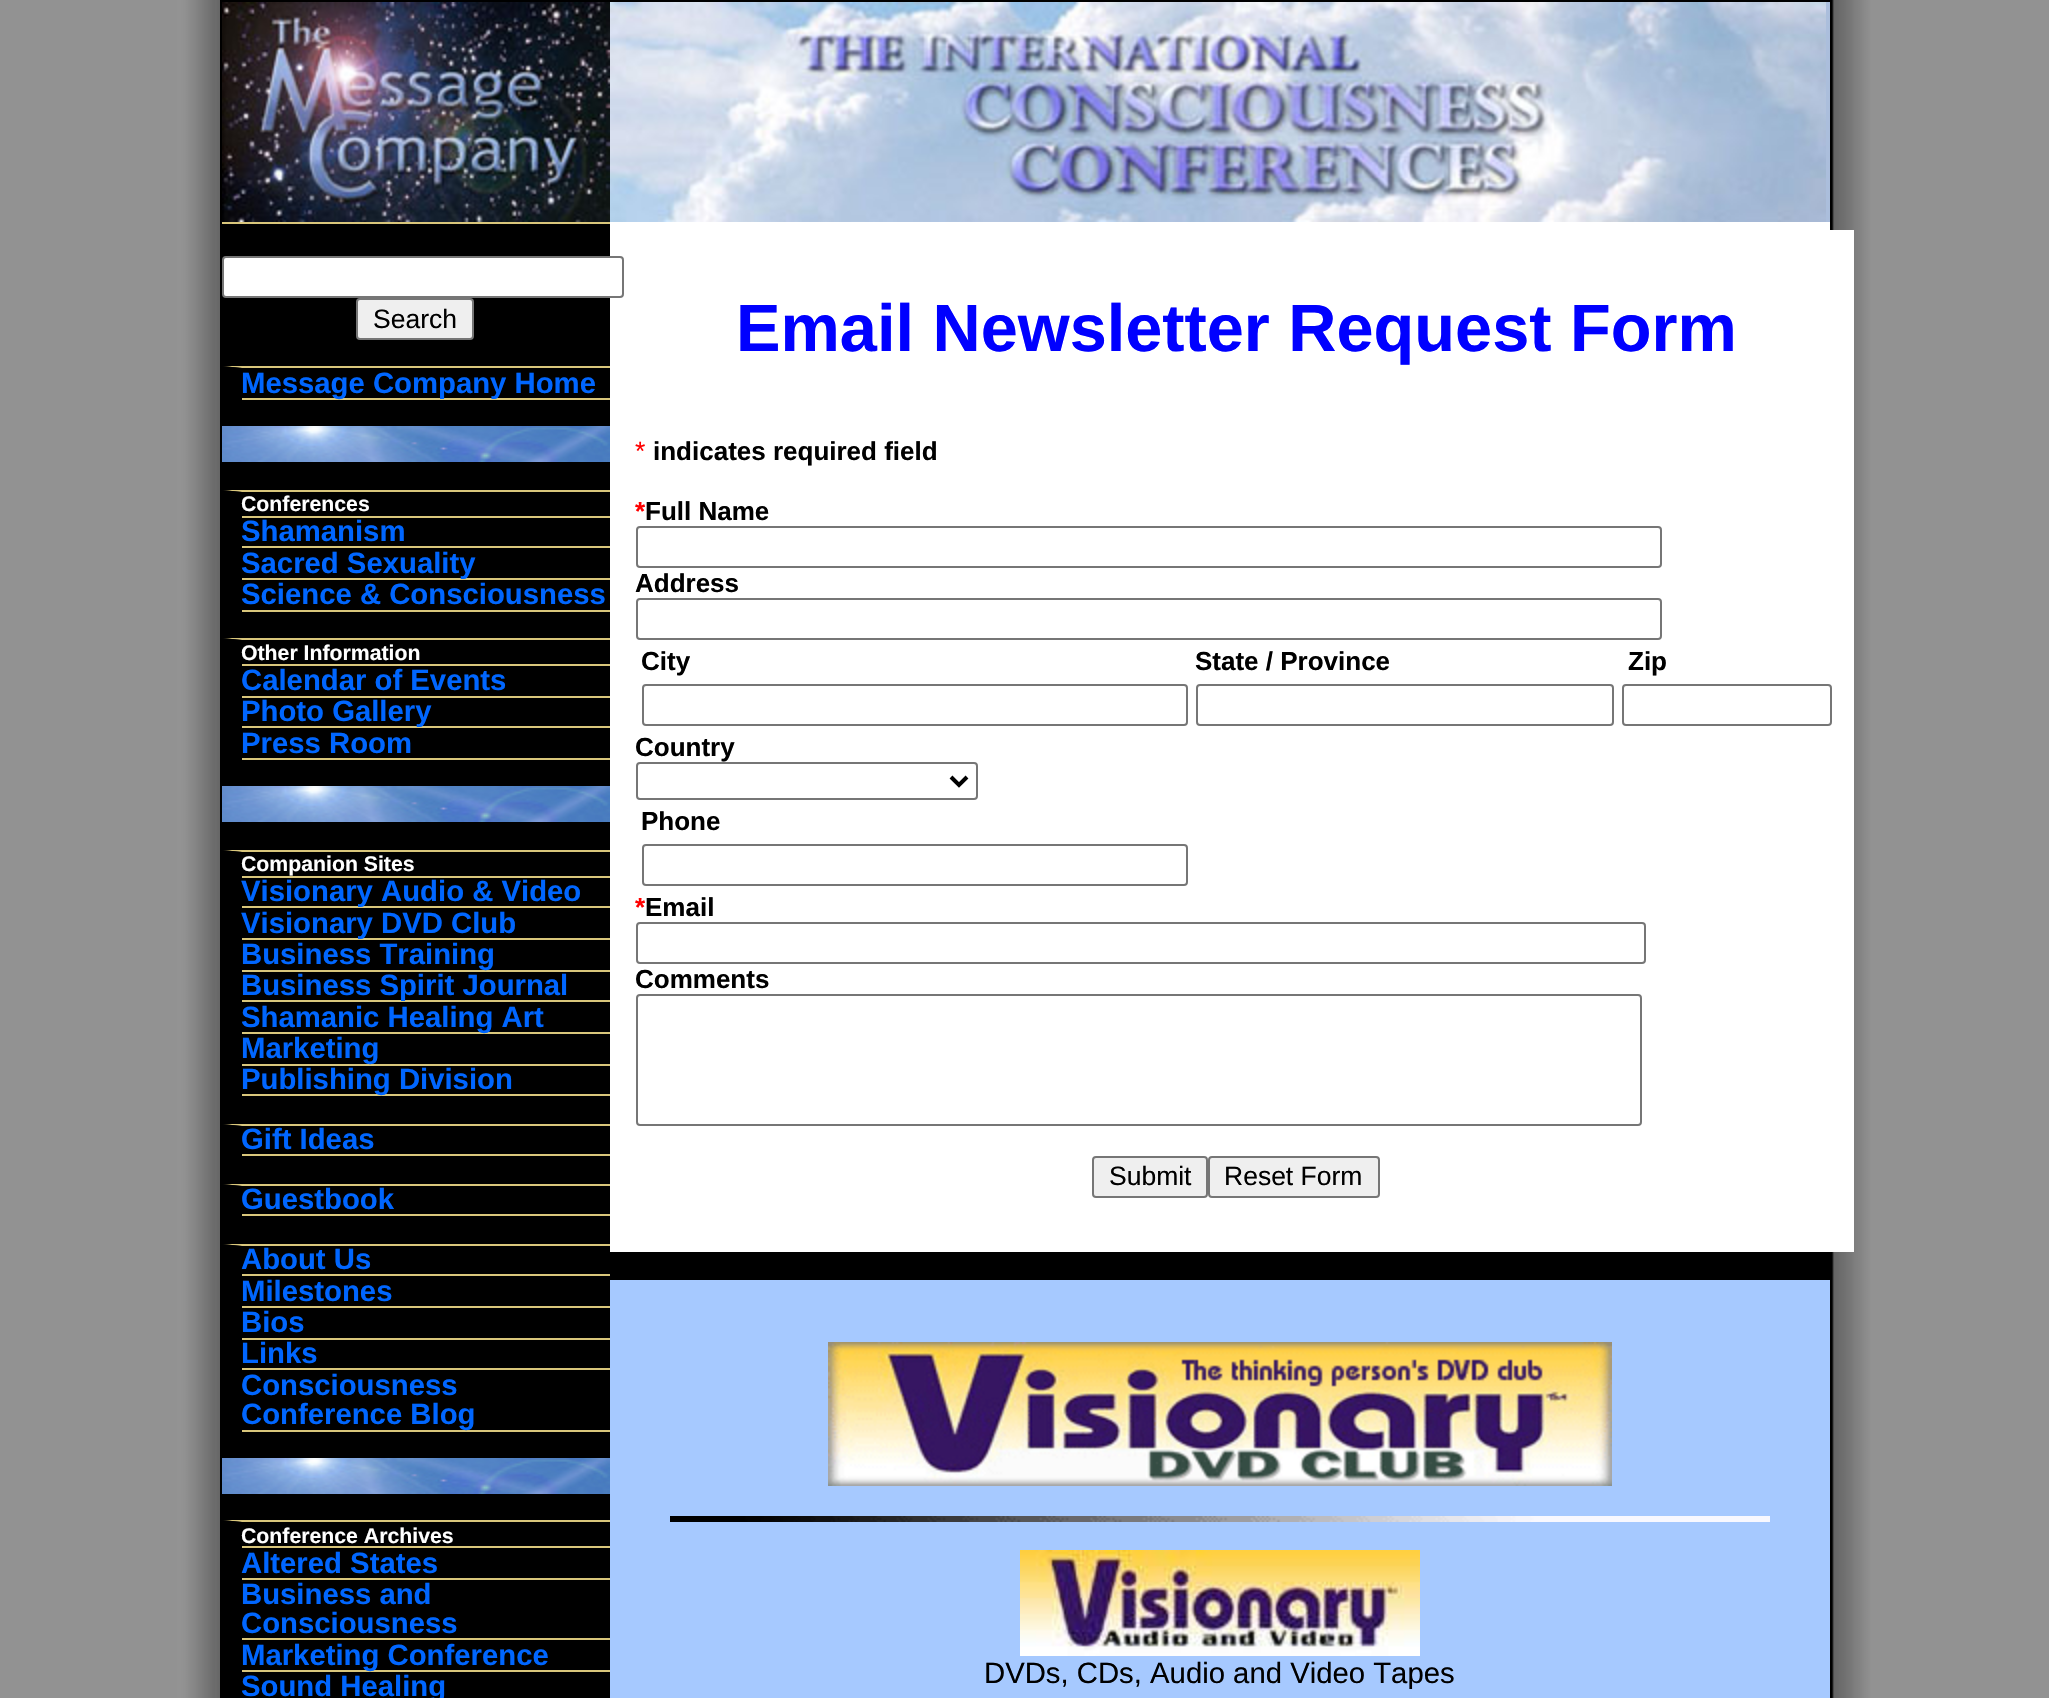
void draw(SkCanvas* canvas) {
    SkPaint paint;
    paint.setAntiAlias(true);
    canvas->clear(0xFFFFFFFF);
    canvas->drawImageRect(SkImages::DeferredFromEncodedData(SkData::MakeFromFileName("img1.png")), SkRect::MakeXYWH(0, 0, 2049, 1698), SkSamplingOptions());
    paint.setColor(0xFF000000);
    canvas->drawRect(SkRect::MakeXYWH(220, 0, 1612, 1698), paint);
    paint.setColor(0xFFABBEDC);
    canvas->drawRect(SkRect::MakeXYWH(1826, 2, 4, 220), paint);
    canvas->drawImageRect(SkImages::DeferredFromEncodedData(SkData::MakeFromFileName("img2.png")), SkRect::MakeXYWH(222, 2, 388, 220), SkSamplingOptions());
    canvas->drawImageRect(SkImages::DeferredFromEncodedData(SkData::MakeFromFileName("img3.png")), SkRect::MakeXYWH(610, 2, 1216, 220), SkSamplingOptions());
    paint.setColor(0xFFD9C67B);
    canvas->drawRect(SkRect::MakeXYWH(222, 222, 388, 2), paint);
    paint.setColor(0xFFFFFFFF);
    canvas->drawRect(SkRect::MakeXYWH(610, 222, 1220, 1030), paint);
    canvas->drawRoundRect(SkRect::MakeXYWH(223, 257, 400, 40), 3, 3, paint);
    paint.setStyle(SkPaint::kStroke_Style);
    paint.setStrokeWidth(2);
    paint.setColor(0xFF767676);
    canvas->drawRoundRect(SkRect::MakeXYWH(223, 257, 400, 40), 3, 3, paint);
    paint.setStyle(SkPaint::kFill_Style);
    paint.setColor(0xFFEFEFEF);
    canvas->drawRoundRect(SkRect::MakeXYWH(357, 299, 116, 40), 3, 3, paint);
    paint.setStyle(SkPaint::kStroke_Style);
    paint.setColor(0xFF767676);
    canvas->drawRoundRect(SkRect::MakeXYWH(357, 299, 116, 40), 3, 3, paint);
    SkFont font1(fontMgr->matchFamilyStyle("Liberation Sans", SkFontStyle::Normal()), 26.5f);
    font1.setSubpixel(true);
    paint.setStyle(SkPaint::kFill_Style);
    paint.setColor(0xFF000000);
    canvas->drawString("Search", 373, 328, font1, paint);
    paint.setColor(0xFFD9C67B);
    canvas->drawPath(SkPathBuilder().moveTo(222, 366).lineTo(610, 366).lineTo(610, 368).lineTo(242, 368).close().detach(), paint);
    paint.setColor(0xFF000000);
    canvas->drawPath(SkPathBuilder().moveTo(222, 400).lineTo(222, 366).lineTo(242, 368).lineTo(242, 400).close().detach(), paint);
    paint.setColor(0xFFD9C67B);
    canvas->drawRect(SkRect::MakeXYWH(242, 398, 368, 2), paint);
    SkFont font2(fontMgr->matchFamilyStyle("Liberation Sans", SkFontStyle::Bold()), 29.3f);
    font2.setSubpixel(true);
    paint.setColor(0xFF0066FF);
    canvas->drawString("Message Company Home", 241, 393, font2, paint);
    canvas->drawImageRect(SkImages::DeferredFromEncodedData(SkData::MakeFromFileName("img4.png")), SkRect::MakeXYWH(222, 426, 388, 36), SkSamplingOptions());
    paint.setColor(0xFFD9C67B);
    canvas->drawPath(SkPathBuilder().moveTo(222, 490).lineTo(610, 490).lineTo(610, 492).lineTo(242, 492).close().detach(), paint);
    paint.setColor(0xFF000000);
    canvas->drawPath(SkPathBuilder().moveTo(222, 612).lineTo(222, 490).lineTo(242, 492).lineTo(242, 612).close().detach(), paint);
    paint.setColor(0xFFD9C67B);
    canvas->drawRect(SkRect::MakeXYWH(242, 516, 368, 2), paint);
    SkFont font3(fontMgr->matchFamilyStyle("Liberation Sans", SkFontStyle::Bold()), 21.25f);
    font3.setSubpixel(true);
    paint.setColor(0xFFFFFFFF);
    canvas->drawString("Conferences", 241, 511, font3, paint);
    paint.setColor(0xFFD9C67B);
    canvas->drawRect(SkRect::MakeXYWH(242, 546, 368, 2), paint);
    paint.setColor(0xFF0066FF);
    canvas->drawString("Shamanism", 241, 541, font2, paint);
    paint.setColor(0xFFD9C67B);
    canvas->drawRect(SkRect::MakeXYWH(242, 578, 368, 2), paint);
    paint.setColor(0xFF0066FF);
    canvas->drawString("Sacred Sexuality", 241, 573, font2, paint);
    paint.setColor(0xFFD9C67B);
    canvas->drawRect(SkRect::MakeXYWH(242, 610, 368, 2), paint);
    paint.setColor(0xFF0066FF);
    canvas->drawString("Science & Consciousness", 241, 604, font2, paint);
    paint.setColor(0xFFD9C67B);
    canvas->drawPath(SkPathBuilder().moveTo(222, 638).lineTo(610, 638).lineTo(610, 640).lineTo(242, 640).close().detach(), paint);
    paint.setColor(0xFF000000);
    canvas->drawPath(SkPathBuilder().moveTo(222, 760).lineTo(222, 638).lineTo(242, 640).lineTo(242, 760).close().detach(), paint);
    paint.setColor(0xFFD9C67B);
    canvas->drawRect(SkRect::MakeXYWH(242, 664, 368, 2), paint);
    paint.setColor(0xFFFFFFFF);
    canvas->drawString("Other Information", 241, 660, font3, paint);
    paint.setColor(0xFFD9C67B);
    canvas->drawRect(SkRect::MakeXYWH(242, 696, 368, 2), paint);
    paint.setColor(0xFF0066FF);
    canvas->drawString("Calendar of Events", 241, 690, font2, paint);
    paint.setColor(0xFFD9C67B);
    canvas->drawRect(SkRect::MakeXYWH(242, 726, 368, 2), paint);
    paint.setColor(0xFF0066FF);
    canvas->drawString("Photo Gallery", 241, 721, font2, paint);
    paint.setColor(0xFFD9C67B);
    canvas->drawRect(SkRect::MakeXYWH(242, 758, 368, 2), paint);
    paint.setColor(0xFF0066FF);
    canvas->drawString("Press Room", 241, 753, font2, paint);
    canvas->drawImageRect(SkImages::DeferredFromEncodedData(SkData::MakeFromFileName("img4.png")), SkRect::MakeXYWH(222, 786, 388, 36), SkSamplingOptions());
    paint.setColor(0xFFD9C67B);
    canvas->drawPath(SkPathBuilder().moveTo(222, 850).lineTo(610, 850).lineTo(610, 852).lineTo(242, 852).close().detach(), paint);
    paint.setColor(0xFF000000);
    canvas->drawPath(SkPathBuilder().moveTo(222, 1096).lineTo(222, 850).lineTo(242, 852).lineTo(242, 1096).close().detach(), paint);
    paint.setColor(0xFFD9C67B);
    canvas->drawRect(SkRect::MakeXYWH(242, 876, 368, 2), paint);
    paint.setColor(0xFFFFFFFF);
    canvas->drawString("Companion Sites", 241, 871, font3, paint);
    paint.setColor(0xFFD9C67B);
    canvas->drawRect(SkRect::MakeXYWH(242, 906, 368, 2), paint);
    paint.setColor(0xFF0066FF);
    canvas->drawString("Visionary Audio & Video", 241, 901, font2, paint);
    paint.setColor(0xFFD9C67B);
    canvas->drawRect(SkRect::MakeXYWH(242, 938, 368, 2), paint);
    paint.setColor(0xFF0066FF);
    canvas->drawString("Visionary DVD Club", 241, 933, font2, paint);
    paint.setColor(0xFFD9C67B);
    canvas->drawRect(SkRect::MakeXYWH(242, 970, 368, 2), paint);
    paint.setColor(0xFF0066FF);
    canvas->drawString("Business Training", 241, 964, font2, paint);
    paint.setColor(0xFFD9C67B);
    canvas->drawRect(SkRect::MakeXYWH(242, 1000, 368, 2), paint);
    paint.setColor(0xFF0066FF);
    canvas->drawString("Business Spirit Journal", 241, 995, font2, paint);
    paint.setColor(0xFFD9C67B);
    canvas->drawRect(SkRect::MakeXYWH(242, 1032, 368, 2), paint);
    paint.setColor(0xFF0066FF);
    canvas->drawString("Shamanic Healing Art", 241, 1027, font2, paint);
    paint.setColor(0xFFD9C67B);
    canvas->drawRect(SkRect::MakeXYWH(242, 1064, 368, 2), paint);
    paint.setColor(0xFF0066FF);
    canvas->drawString("Marketing", 241, 1058, font2, paint);
    paint.setColor(0xFFD9C67B);
    canvas->drawRect(SkRect::MakeXYWH(242, 1094, 368, 2), paint);
    paint.setColor(0xFF0066FF);
    canvas->drawString("Publishing Division", 241, 1089, font2, paint);
    paint.setColor(0xFFD9C67B);
    canvas->drawPath(SkPathBuilder().moveTo(222, 1124).lineTo(610, 1124).lineTo(610, 1126).lineTo(242, 1126).close().detach(), paint);
    paint.setColor(0xFF000000);
    canvas->drawPath(SkPathBuilder().moveTo(222, 1156).lineTo(222, 1124).lineTo(242, 1126).lineTo(242, 1156).close().detach(), paint);
    paint.setColor(0xFFD9C67B);
    canvas->drawRect(SkRect::MakeXYWH(242, 1154, 368, 2), paint);
    paint.setColor(0xFF0066FF);
    canvas->drawString("Gift Ideas", 241, 1149, font2, paint);
    paint.setColor(0xFFD9C67B);
    canvas->drawPath(SkPathBuilder().moveTo(222, 1184).lineTo(610, 1184).lineTo(610, 1186).lineTo(242, 1186).close().detach(), paint);
    paint.setColor(0xFF000000);
    canvas->drawPath(SkPathBuilder().moveTo(222, 1216).lineTo(222, 1184).lineTo(242, 1186).lineTo(242, 1216).close().detach(), paint);
    paint.setColor(0xFFD9C67B);
    canvas->drawRect(SkRect::MakeXYWH(242, 1214, 368, 2), paint);
    paint.setColor(0xFF0066FF);
    canvas->drawString("Guestbook", 241, 1209, font2, paint);
    paint.setColor(0xFFD9C67B);
    canvas->drawPath(SkPathBuilder().moveTo(222, 1244).lineTo(610, 1244).lineTo(610, 1246).lineTo(242, 1246).close().detach(), paint);
    paint.setColor(0xFF000000);
    canvas->drawPath(SkPathBuilder().moveTo(222, 1432).lineTo(222, 1244).lineTo(242, 1246).lineTo(242, 1432).close().detach(), paint);
    paint.setColor(0xFFD9C67B);
    canvas->drawRect(SkRect::MakeXYWH(242, 1274, 368, 2), paint);
    paint.setColor(0xFF0066FF);
    canvas->drawString("About Us", 241, 1269, font2, paint);
    paint.setColor(0xFFD9C67B);
    canvas->drawRect(SkRect::MakeXYWH(242, 1306, 368, 2), paint);
    paint.setColor(0xFF0066FF);
    canvas->drawString("Milestones", 241, 1301, font2, paint);
    paint.setColor(0xFFD9C67B);
    canvas->drawRect(SkRect::MakeXYWH(242, 1338, 368, 2), paint);
    paint.setColor(0xFF0066FF);
    canvas->drawString("Bios", 241, 1332, font2, paint);
    paint.setColor(0xFFD9C67B);
    canvas->drawRect(SkRect::MakeXYWH(242, 1368, 368, 2), paint);
    paint.setColor(0xFF0066FF);
    canvas->drawString("Links", 241, 1363, font2, paint);
    paint.setColor(0xFFD9C67B);
    canvas->drawRect(SkRect::MakeXYWH(242, 1430, 368, 2), paint);
    paint.setColor(0xFF0066FF);
    canvas->drawString("Consciousness", 241, 1395, font2, paint);
    canvas->drawString("Conference Blog", 241, 1424, font2, paint);
    canvas->drawImageRect(SkImages::DeferredFromEncodedData(SkData::MakeFromFileName("img4.png")), SkRect::MakeXYWH(222, 1458, 388, 36), SkSamplingOptions());
    paint.setColor(0xFFD9C67B);
    canvas->drawPath(SkPathBuilder().moveTo(222, 1520).lineTo(610, 1520).lineTo(610, 1522).lineTo(242, 1522).close().detach(), paint);
    paint.setColor(0xFF000000);
    canvas->drawPath(SkPathBuilder().moveTo(222, 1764).lineTo(222, 1520).lineTo(242, 1522).lineTo(242, 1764).close().detach(), paint);
    paint.setColor(0xFFD9C67B);
    canvas->drawRect(SkRect::MakeXYWH(242, 1546, 368, 2), paint);
    paint.setColor(0xFFFFFFFF);
    canvas->drawString("Conference Archives", 241, 1543, font3, paint);
    paint.setColor(0xFFD9C67B);
    canvas->drawRect(SkRect::MakeXYWH(242, 1578, 368, 2), paint);
    paint.setColor(0xFF0066FF);
    canvas->drawString("Altered States", 241, 1573, font2, paint);
    paint.setColor(0xFFD9C67B);
    canvas->drawRect(SkRect::MakeXYWH(242, 1638, 368, 2), paint);
    paint.setColor(0xFF0066FF);
    canvas->drawString("Business and", 241, 1604, font2, paint);
    canvas->drawString("Consciousness", 241, 1633, font2, paint);
    paint.setColor(0xFFD9C67B);
    canvas->drawRect(SkRect::MakeXYWH(242, 1670, 368, 2), paint);
    paint.setColor(0xFF0066FF);
    canvas->drawString("Marketing Conference", 241, 1665, font2, paint);
    canvas->drawString("Sound Healing", 241, 1696, font2, paint);
    paint.setColor(0xFFFFFFFF);
    canvas->drawRect(SkRect::MakeXYWH(1830, 230, 24, 1022), paint);
    SkFont font4(fontMgr->matchFamilyStyle("Liberation Sans", SkFontStyle::Bold()), 66.7f);
    font4.setSubpixel(true);
    paint.setColor(0xFF0000FF);
    canvas->drawString("Email Newsletter Request Form", 736, 351, font4, paint);
    paint.setColor(0xFFFF0000);
    canvas->drawString("*", 635, 460, font1, paint);
    SkFont font5(fontMgr->matchFamilyStyle("Liberation Sans", SkFontStyle::Bold()), 26);
    font5.setSubpixel(true);
    paint.setColor(0xFF000000);
    canvas->drawString("indicates required field", 653, 460, font5, paint);
    paint.setColor(0xFFFF0000);
    canvas->drawString("*", 635, 520, font5, paint);
    paint.setColor(0xFF000000);
    canvas->drawString("Full Name", 645, 520, font5, paint);
    paint.setStyle(SkPaint::kStroke_Style);
    paint.setColor(0xFF767676);
    canvas->drawRoundRect(SkRect::MakeXYWH(637, 527, 1024, 40), 3, 3, paint);
    paint.setStyle(SkPaint::kFill_Style);
    paint.setColor(0xFF000000);
    canvas->drawString("Address", 635, 592, font5, paint);
    paint.setStyle(SkPaint::kStroke_Style);
    paint.setColor(0xFF767676);
    canvas->drawRoundRect(SkRect::MakeXYWH(637, 599, 1024, 40), 3, 3, paint);
    paint.setStyle(SkPaint::kFill_Style);
    paint.setColor(0xFF000000);
    canvas->drawString("City", 641, 670, font5, paint);
    canvas->drawString("State / Province", 1195, 670, font5, paint);
    canvas->drawString("Zip", 1628, 670, font5, paint);
    paint.setStyle(SkPaint::kStroke_Style);
    paint.setColor(0xFF767676);
    canvas->drawRoundRect(SkRect::MakeXYWH(643, 685, 544, 40), 3, 3, paint);
    canvas->drawRoundRect(SkRect::MakeXYWH(1197, 685, 416, 40), 3, 3, paint);
    canvas->drawRoundRect(SkRect::MakeXYWH(1623, 685, 208, 40), 3, 3, paint);
    paint.setStyle(SkPaint::kFill_Style);
    paint.setColor(0xFF000000);
    canvas->drawString("Country", 635, 756, font5, paint);
    paint.setStyle(SkPaint::kStroke_Style);
    paint.setColor(0xFF767676);
    canvas->drawRoundRect(SkRect::MakeXYWH(637, 763, 340, 36), 3, 3, paint);
    paint.setStrokeWidth(4);
    paint.setColor(0xFF000000);
    canvas->drawPath(SkPathBuilder().moveTo(951, 777).lineTo(959, 785).lineTo(967, 777).detach(), paint);
    paint.setStyle(SkPaint::kFill_Style);
    canvas->drawString("Phone", 641, 830, font5, paint);
    paint.setStyle(SkPaint::kStroke_Style);
    paint.setStrokeWidth(2);
    paint.setColor(0xFF767676);
    canvas->drawRoundRect(SkRect::MakeXYWH(643, 845, 544, 40), 3, 3, paint);
    paint.setStyle(SkPaint::kFill_Style);
    paint.setColor(0xFF000000);
    canvas->drawString("Email", 645, 916, font5, paint);
    paint.setStyle(SkPaint::kStroke_Style);
    paint.setColor(0xFF767676);
    canvas->drawRoundRect(SkRect::MakeXYWH(637, 923, 1008, 40), 3, 3, paint);
    paint.setStyle(SkPaint::kFill_Style);
    paint.setColor(0xFF000000);
    canvas->drawString("Comments", 635, 988, font5, paint);
    paint.setColor(0xFFFF0000);
    canvas->drawString("*", 635, 916, font5, paint);
    paint.setStyle(SkPaint::kStroke_Style);
    paint.setColor(0xFF767676);
    canvas->drawRoundRect(SkRect::MakeXYWH(637, 995, 1004, 130), 3, 3, paint);
    paint.setStyle(SkPaint::kFill_Style);
    paint.setColor(0xFFEFEFEF);
    canvas->drawRoundRect(SkRect::MakeXYWH(1093, 1157, 114, 40), 3, 3, paint);
    paint.setStyle(SkPaint::kStroke_Style);
    paint.setColor(0xFF767676);
    canvas->drawRoundRect(SkRect::MakeXYWH(1093, 1157, 114, 40), 3, 3, paint);
    paint.setStyle(SkPaint::kFill_Style);
    paint.setColor(0xFF000000);
    canvas->drawString("Submit", 1109, 1185, font1, paint);
    paint.setColor(0xFFEFEFEF);
    canvas->drawRoundRect(SkRect::MakeXYWH(1209, 1157, 170, 40), 3, 3, paint);
    paint.setStyle(SkPaint::kStroke_Style);
    paint.setColor(0xFF767676);
    canvas->drawRoundRect(SkRect::MakeXYWH(1209, 1157, 170, 40), 3, 3, paint);
    paint.setStyle(SkPaint::kFill_Style);
    paint.setColor(0xFF000000);
    canvas->drawString("Reset Form", 1224, 1185, font1, paint);
    paint.setColor(0xFFA6C9FF);
    canvas->drawRect(SkRect::MakeXYWH(610, 1280, 1220, 418), paint);
    canvas->drawImageRect(SkImages::DeferredFromEncodedData(SkData::MakeFromFileName("img5.png")), SkRect::MakeXYWH(828, 1342, 784, 144), SkSamplingOptions());
    canvas->drawImageRect(SkImages::DeferredFromEncodedData(SkData::MakeFromFileName("img6.png")), SkRect::MakeXYWH(670, 1516, 1100, 6), SkSamplingOptions());
    canvas->drawImageRect(SkImages::DeferredFromEncodedData(SkData::MakeFromFileName("img7.png")), SkRect::MakeXYWH(1020, 1550, 400, 106), SkSamplingOptions());
    SkFont font6(fontMgr->matchFamilyStyle("Liberation Sans", SkFontStyle::Normal()), 29.3f);
    font6.setSubpixel(true);
    paint.setColor(0xFF000000);
    canvas->drawString("DVDs, CDs, Audio and Video Tapes", 984, 1683, font6, paint);
}
